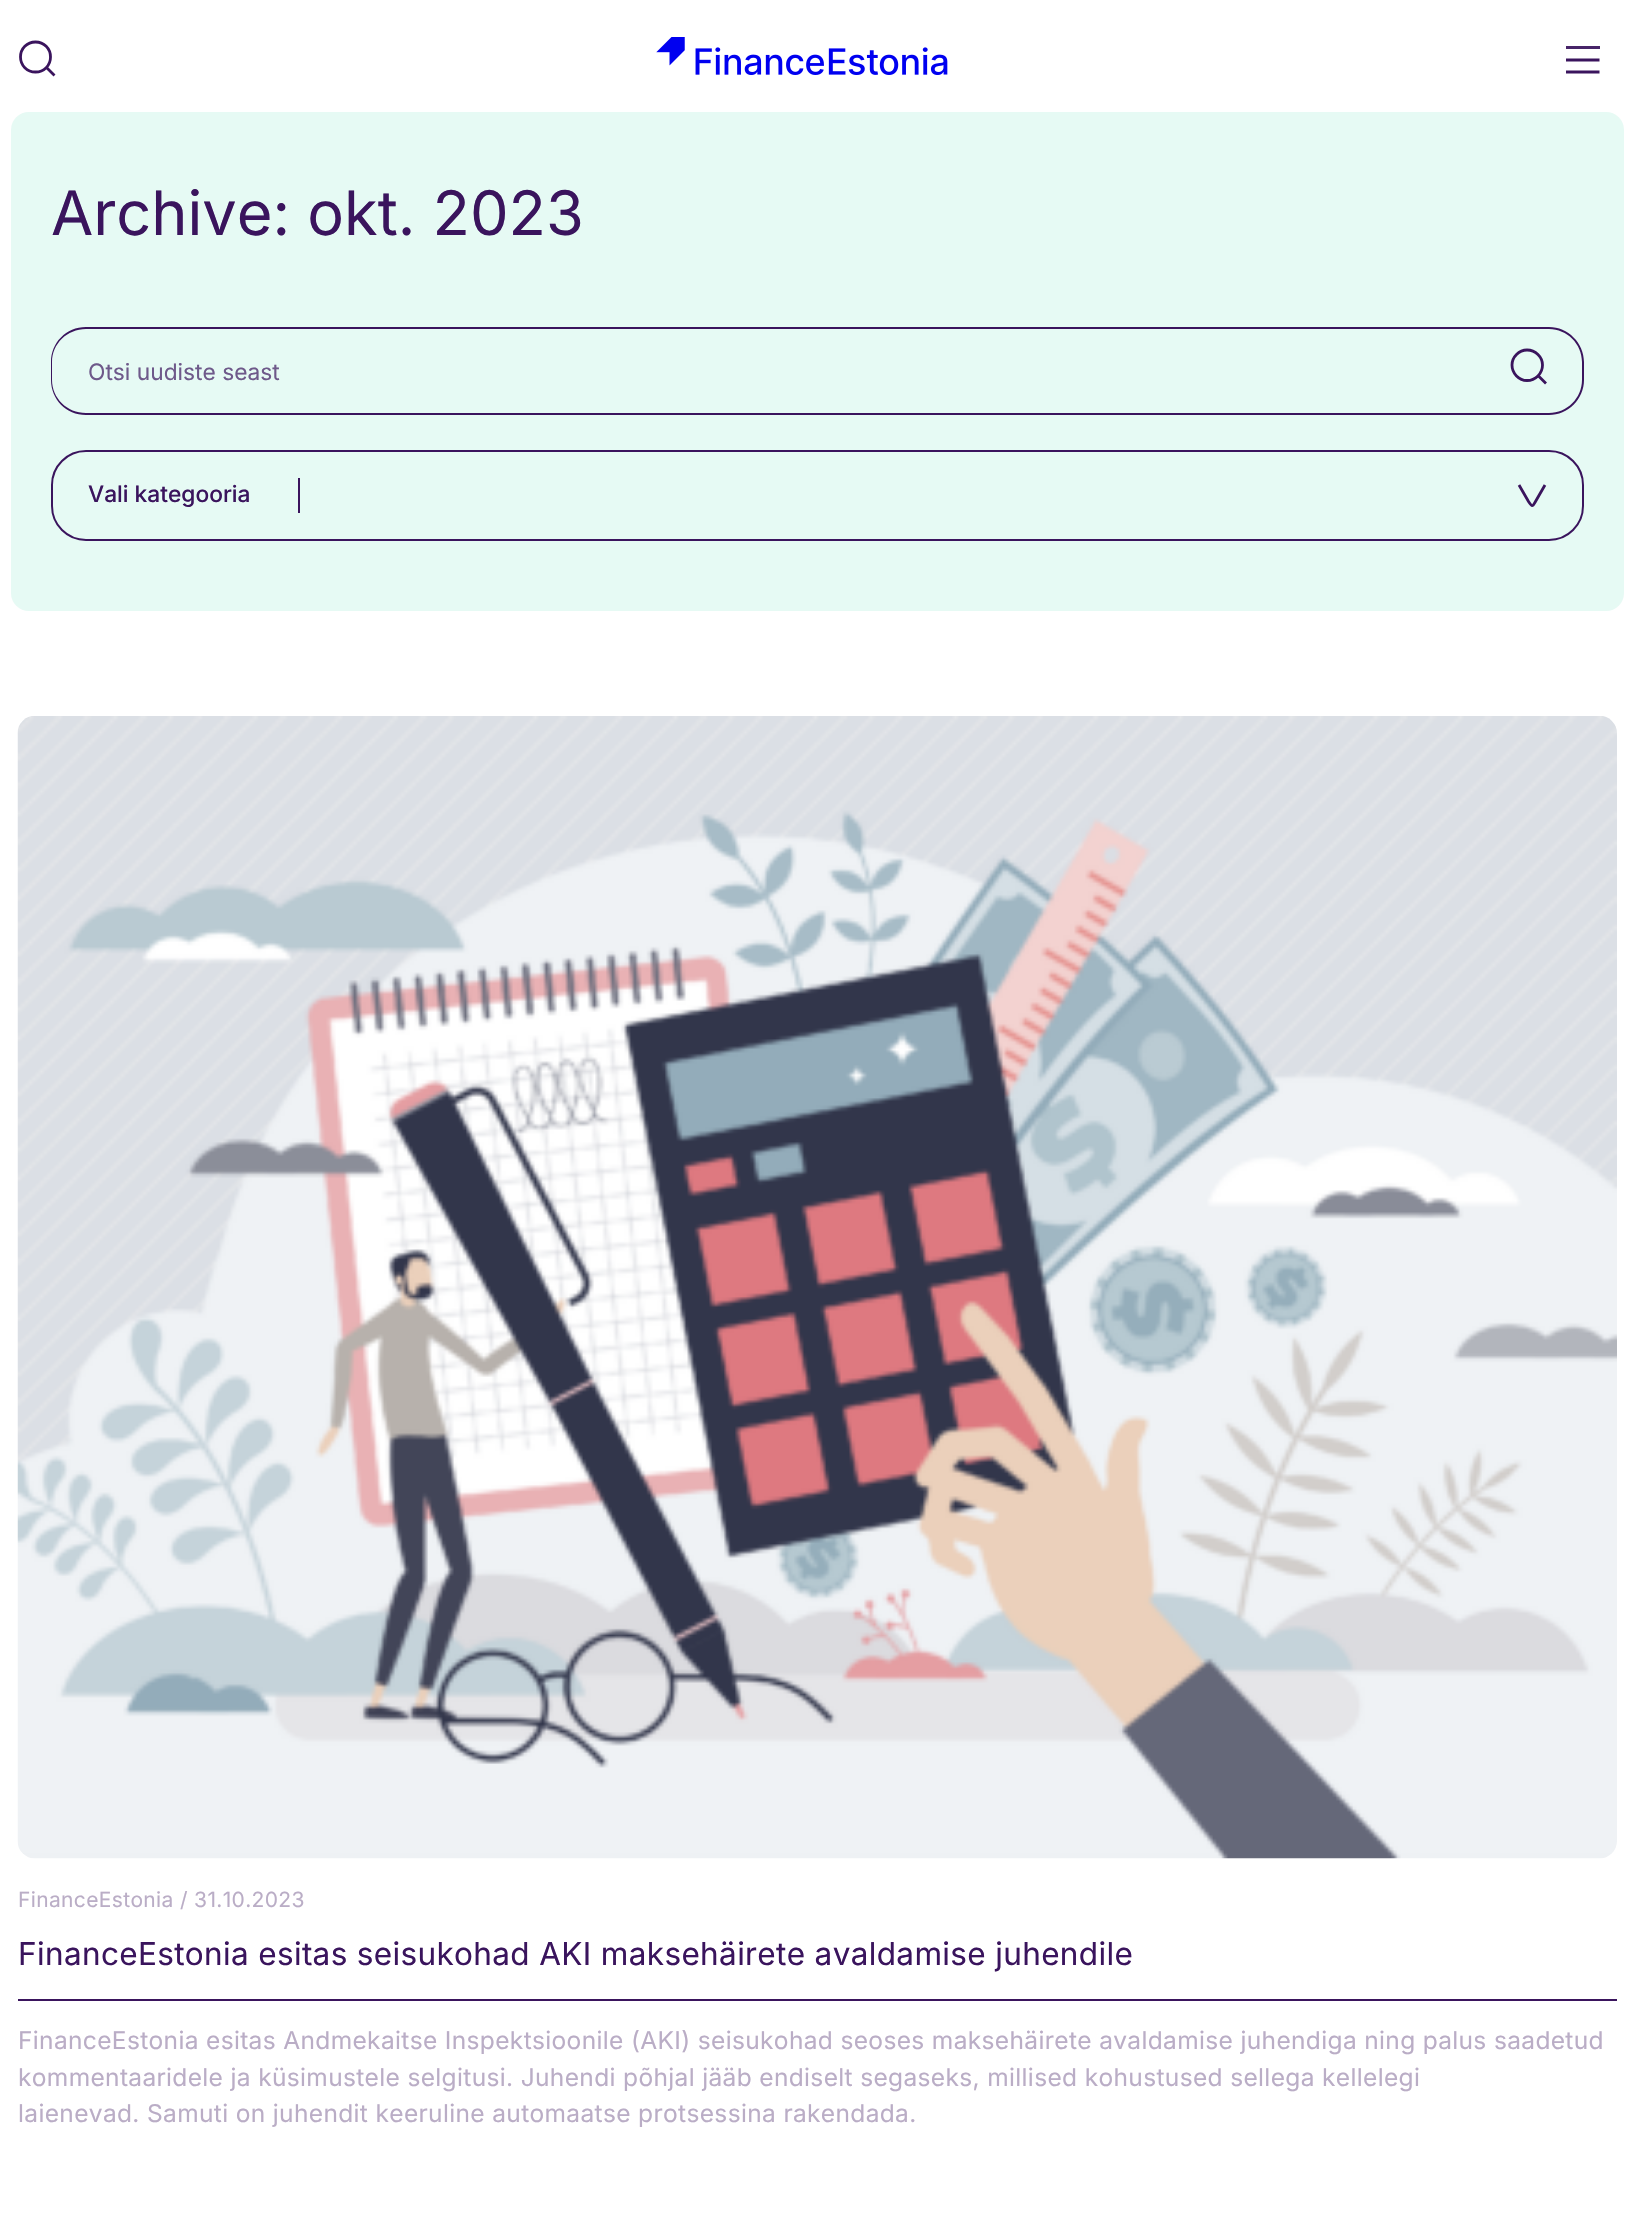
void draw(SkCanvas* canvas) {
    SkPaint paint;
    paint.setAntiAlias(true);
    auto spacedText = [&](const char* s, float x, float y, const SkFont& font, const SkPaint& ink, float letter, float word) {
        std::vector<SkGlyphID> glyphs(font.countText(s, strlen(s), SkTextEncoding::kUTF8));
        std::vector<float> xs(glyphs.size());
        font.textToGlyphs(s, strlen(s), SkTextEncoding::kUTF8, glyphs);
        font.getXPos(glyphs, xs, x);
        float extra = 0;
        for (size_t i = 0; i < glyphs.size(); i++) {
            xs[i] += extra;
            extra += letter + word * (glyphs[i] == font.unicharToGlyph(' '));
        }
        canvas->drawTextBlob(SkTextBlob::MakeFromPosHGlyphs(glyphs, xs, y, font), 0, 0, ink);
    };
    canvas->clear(0xFFFFFFFF);
    paint.setStyle(SkPaint::kStroke_Style);
    paint.setStrokeWidth(2.8f);
    paint.setColor(0xFF3A145D);
    canvas->drawPath(SkPathBuilder().moveTo(35.5f, 72).cubicTo(44, 72, 50.5f, 65.5f, 50.5f, 57).cubicTo(50.5f, 48.5f, 44, 42, 35.5f, 42).cubicTo(27, 42, 20.5f, 48.5f, 20.5f, 57).cubicTo(20.5f, 65.5f, 27, 72, 35.5f, 72).close().moveTo(54.5f, 75.5f).lineTo(46, 67).detach(), paint);
    canvas->drawImageRect(SkImages::DeferredFromEncodedData(SkData::MakeFromFileName("img1.png")), SkRect::MakeXYWH(656, 37, 292, 38), SkSamplingOptions());
    paint.setStyle(SkPaint::kFill_Style);
    paint.setColor(0xFF472468);
    canvas->drawRect(SkRect::MakeXYWH(1566, 46, 34, 3), paint);
    paint.setStyle(SkPaint::kStroke_Style);
    paint.setColor(0xFF3A145D);
    canvas->drawPath(SkPathBuilder().moveTo(1566, 60).lineTo(1599.5f, 60).moveTo(1566, 72).lineTo(1599.5f, 72).detach(), paint);
    paint.setStyle(SkPaint::kFill_Style);
    paint.setColor(0xFFE6FAF4);
    canvas->drawRoundRect(SkRect::MakeXYWH(11, 112, 1613, 499), 18, 18, paint);
    SkFont font1(fontMgr->matchFamilyStyle("Inter", SkFontStyle::Normal()), 61.25f);
    font1.setSubpixel(true);
    paint.setColor(0xFF3A145D);
    canvas->drawString("Archive: okt. 2023", 51, 235, font1, paint);
    canvas->drawPath(SkPathBuilder(SkPathFillType::kEvenOdd).moveTo(86, 327).lineTo(1477, 327).lineTo(1477, 415).lineTo(86, 415).cubicTo(66, 415, 51, 399, 51, 380).lineTo(51, 362).cubicTo(51, 343, 66, 327, 86, 327).close().moveTo(86, 329).lineTo(1477, 329).lineTo(1477, 413).lineTo(86, 413).cubicTo(67, 413, 52, 398, 52, 380).lineTo(52, 362).cubicTo(52, 344, 67, 329, 86, 329).close().detach(), paint);
    SkFont font2(fontMgr->matchFamilyStyle("Inter", SkFontStyle::Normal()), 22.75f);
    font2.setSubpixel(true);
    paint.setColor(0xFF6E598A);
    canvas->drawString("Otsi uudiste seast", 88, 380, font2, paint);
    paint.setColor(0xFF3A145D);
    canvas->drawPath(SkPathBuilder(SkPathFillType::kEvenOdd).moveTo(1475, 327).lineTo(1549, 327).cubicTo(1568, 327, 1584, 343, 1584, 362).lineTo(1584, 380).cubicTo(1584, 399, 1568, 415, 1549, 415).lineTo(1475, 415).close().moveTo(1475, 329).lineTo(1549, 329).cubicTo(1567, 329, 1582, 344, 1582, 362).lineTo(1582, 380).cubicTo(1582, 398, 1567, 413, 1549, 413).lineTo(1475, 413).close().detach(), paint);
    paint.setStyle(SkPaint::kStroke_Style);
    canvas->drawPath(SkPathBuilder().moveTo(1527, 380.5f).cubicTo(1535.5f, 380.5f, 1542.5f, 373.5f, 1542.5f, 365).cubicTo(1542.5f, 357, 1535.5f, 350, 1527, 350).cubicTo(1519, 350, 1512, 357, 1512, 365).cubicTo(1512, 373.5f, 1519, 380.5f, 1527, 380.5f).close().moveTo(1546, 383.5f).lineTo(1537.5f, 375).detach(), paint);
    paint.setStrokeWidth(2);
    canvas->drawRoundRect(SkRect::MakeXYWH(52, 451, 1531, 89), 34, 34, paint);
    SkFont font3(fontMgr->matchFamilyStyle("Inter", SkFontStyle(500, SkFontStyle::kNormal_Width, SkFontStyle::kUpright_Slant)), 22.75f);
    font3.setSubpixel(true);
    paint.setStyle(SkPaint::kFill_Style);
    canvas->drawString("Vali kategooria", 88, 502, font3, paint);
    canvas->drawRect(SkRect::MakeXYWH(298, 478, 2, 35), paint);
    paint.setStyle(SkPaint::kStroke_Style);
    paint.setStrokeWidth(2.8f);
    canvas->drawPath(SkPathBuilder().moveTo(1519, 485).lineTo(1528.5f, 501.5f).cubicTo(1532, 507, 1532.5f, 507, 1535.5f, 501.5f).lineTo(1545, 485).detach(), paint);
    canvas->drawImageRect(SkImages::DeferredFromEncodedData(SkData::MakeFromFileName("img2.png")), SkRect::MakeXYWH(17, 716, 1600, 1143), SkSamplingOptions());
    SkFont font4(fontMgr->matchFamilyStyle("Inter", SkFontStyle::Normal()), 21);
    font4.setSubpixel(true);
    paint.setStyle(SkPaint::kFill_Style);
    paint.setColor(0xFFBAADC6);
    spacedText("FinanceEstonia / 31.10.2023", 18, 1907, font4, paint, 0.35f, 0);
    SkFont font5(fontMgr->matchFamilyStyle("Inter", SkFontStyle::Normal()), 31.5f);
    font5.setSubpixel(true);
    paint.setColor(0xFF3A145D);
    spacedText("FinanceEstonia esitas seisukohad AKI maksehäirete avaldamise juhendile", 18, 1965, font5, paint, 0.35f, 0);
    canvas->drawRect(SkRect::MakeXYWH(18, 1999, 1599, 2), paint);
    SkFont font6(fontMgr->matchFamilyStyle("Inter", SkFontStyle::Normal()), 24.5f);
    font6.setSubpixel(true);
    paint.setColor(0xFFBAADC6);
    spacedText("FinanceEstonia esitas Andmekaitse Inspektsioonile (AKI) seisukohad seoses maksehäirete avaldamise juhendiga ning palus saadetud", 18, 2049, font6, paint, 0.35f, 0);
    spacedText("kommentaaridele ja küsimustele selgitusi. Juhendi põhjal jääb endiselt segaseks, millised kohustused sellega kellelegi", 18, 2086, font6, paint, 0.35f, 0);
    spacedText("laienevad. Samuti on juhendit keeruline automaatse protsessina rakendada.", 18, 2122, font6, paint, 0.35f, 0);
}
